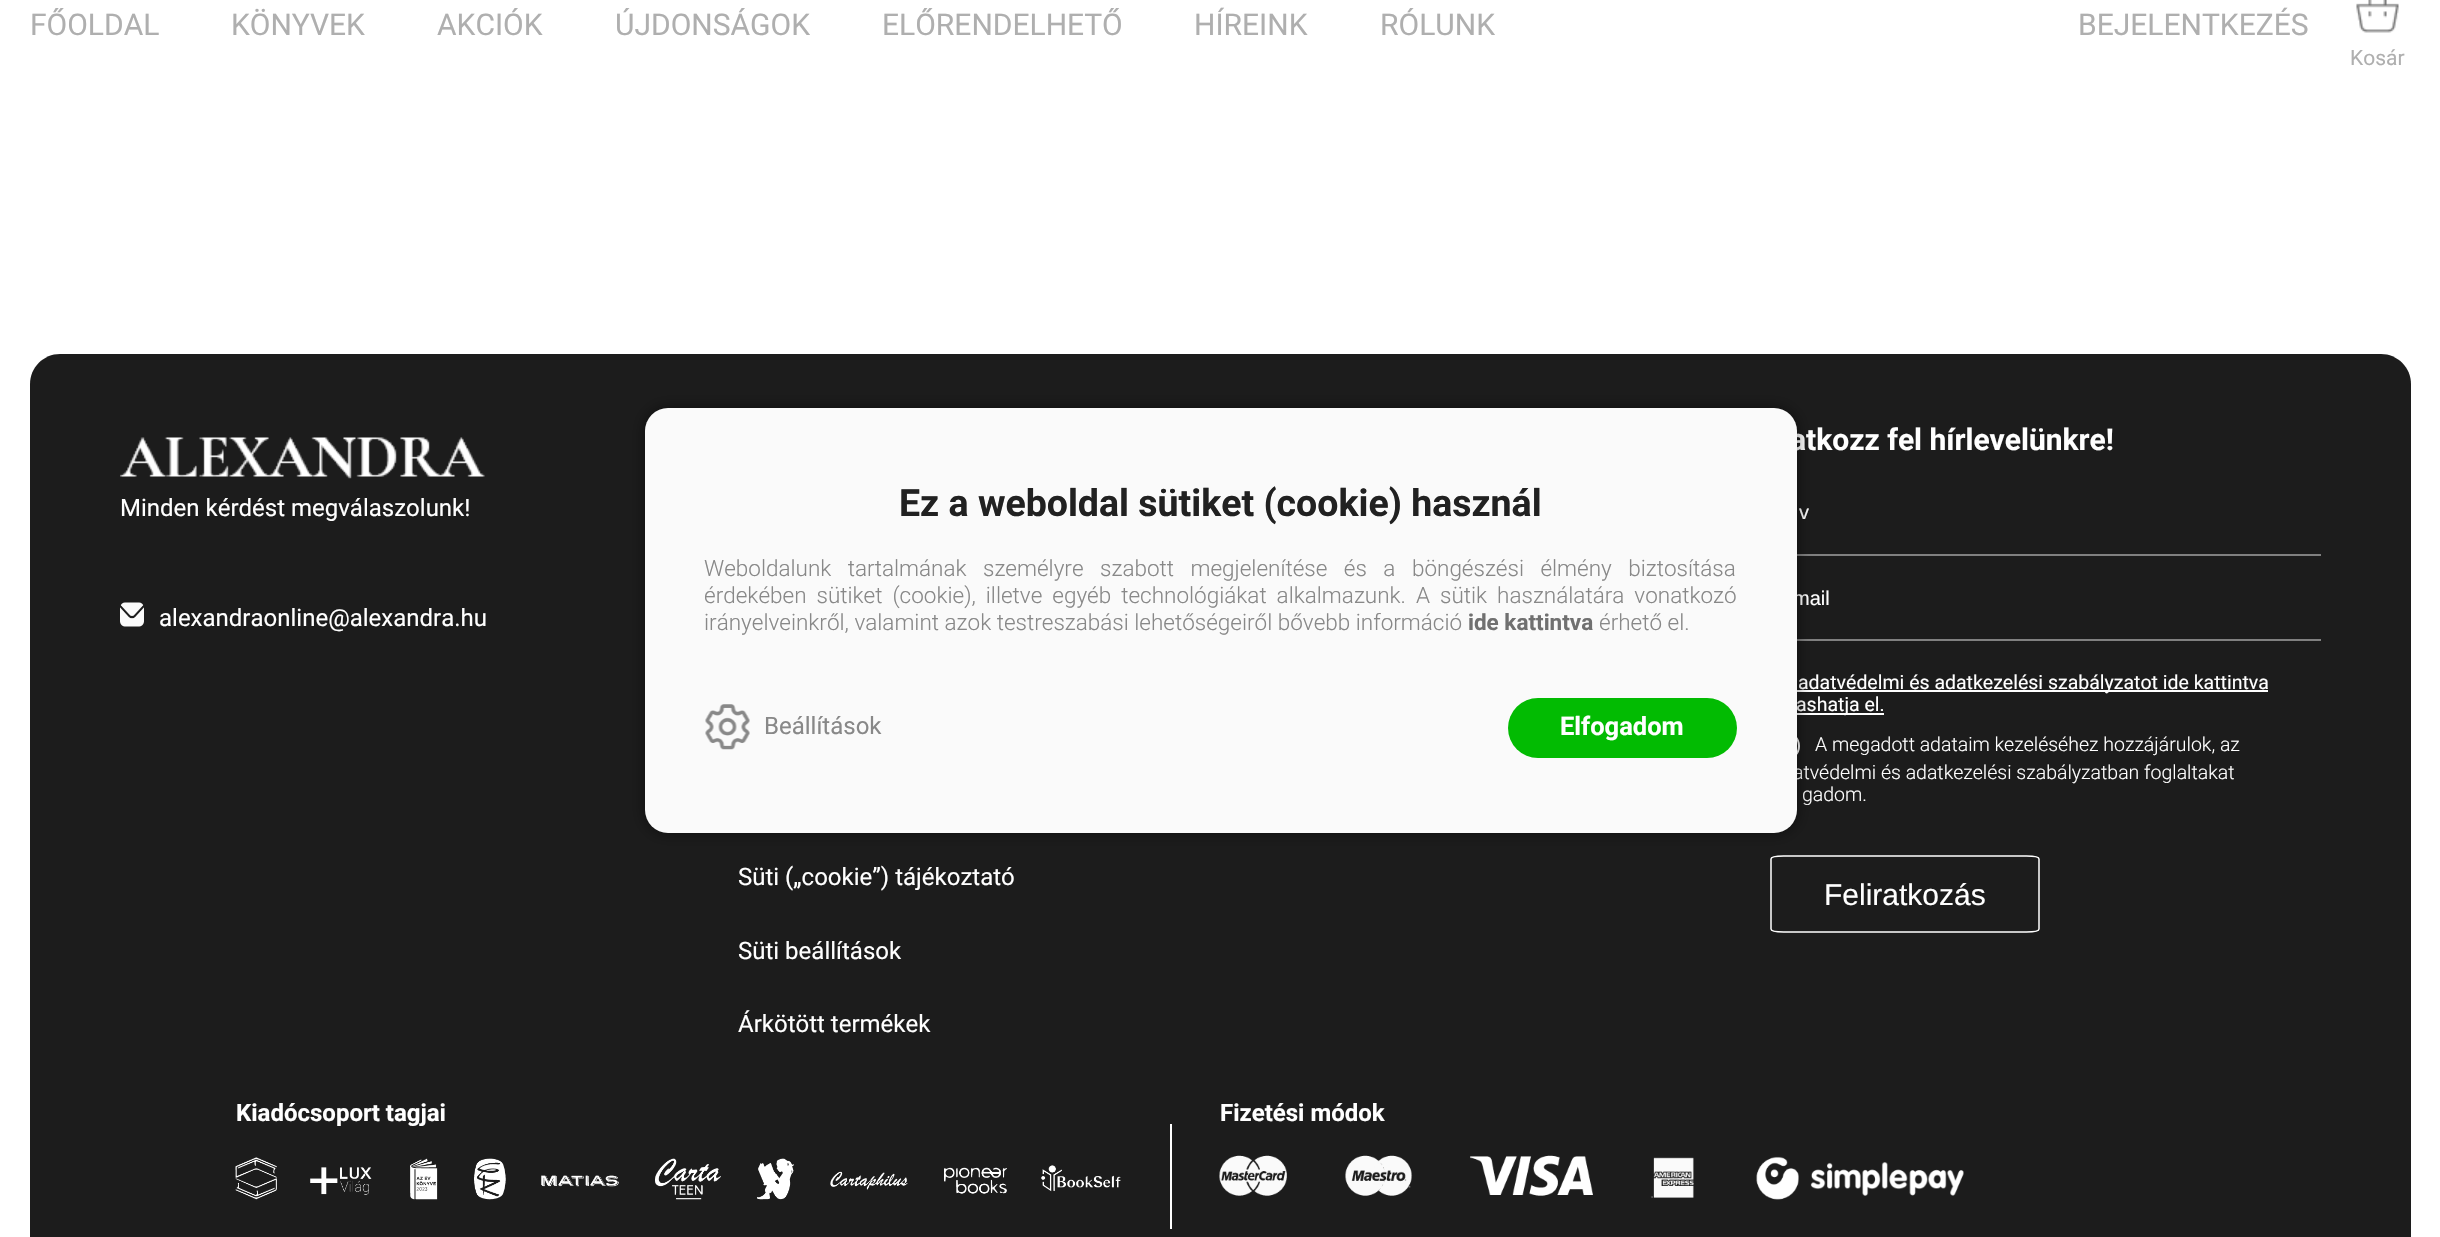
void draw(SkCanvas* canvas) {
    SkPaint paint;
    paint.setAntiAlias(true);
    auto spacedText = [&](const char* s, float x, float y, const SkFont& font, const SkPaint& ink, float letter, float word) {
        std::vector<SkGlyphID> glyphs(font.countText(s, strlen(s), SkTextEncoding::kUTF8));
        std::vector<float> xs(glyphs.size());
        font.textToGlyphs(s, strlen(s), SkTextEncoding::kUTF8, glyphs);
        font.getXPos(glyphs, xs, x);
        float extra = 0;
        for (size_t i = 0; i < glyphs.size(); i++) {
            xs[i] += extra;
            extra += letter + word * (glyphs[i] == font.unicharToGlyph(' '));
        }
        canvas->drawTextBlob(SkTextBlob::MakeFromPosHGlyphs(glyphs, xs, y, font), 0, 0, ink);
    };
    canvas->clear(0xFFFFFFFF);
    SkFont font1(fontMgr->matchFamilyStyle("Roboto", SkFontStyle::Normal()), 30);
    font1.setSubpixel(true);
    paint.setColor(0xFFAFAFAF);
    canvas->drawString("FŐOLDAL", 30, 35, font1, paint);
    canvas->drawString("KÖNYVEK", 231, 35, font1, paint);
    canvas->drawString("AKCIÓK", 437, 35, font1, paint);
    canvas->drawString("ÚJDONSÁGOK", 615, 35, font1, paint);
    canvas->drawString("ELŐRENDELHETŐ", 882, 35, font1, paint);
    canvas->drawString("HÍREINK", 1194, 35, font1, paint);
    canvas->drawString("RÓLUNK", 1380, 35, font1, paint);
    canvas->drawString("BEJELENTKEZÉS", 2078, 35, font1, paint);
    canvas->drawImageRect(SkImages::DeferredFromEncodedData(SkData::MakeFromFileName("img1.png")), SkRect::MakeXYWH(2356, 0, 43, 33), SkSamplingOptions());
    SkFont font2(fontMgr->matchFamilyStyle("Roboto", SkFontStyle::Normal()), 21);
    font2.setSubpixel(true);
    canvas->drawString("Kosár", 2350, 65, font2, paint);
    paint.setColor(0xFF1C1C1C);
    canvas->drawPath(SkPathBuilder().moveTo(60, 354).lineTo(2381, 354).cubicTo(2397.5f, 354, 2411, 367.5f, 2411, 384).lineTo(2411, 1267).lineTo(30, 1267).lineTo(30, 384).cubicTo(30, 367.5f, 43.5f, 354, 60, 354).close().detach(), paint);
    canvas->drawImageRect(SkImages::DeferredFromEncodedData(SkData::MakeFromFileName("img2.png")), SkRect::MakeXYWH(120, 437, 365, 42), SkSamplingOptions());
    SkFont font3(fontMgr->matchFamilyStyle("Roboto", SkFontStyle::Normal()), 24);
    font3.setSubpixel(true);
    paint.setColor(0xFFFFFFFF);
    canvas->drawString("Minden kérdést megválaszolunk!", 120, 516, font3, paint);
    canvas->drawImageRect(SkImages::DeferredFromEncodedData(SkData::MakeFromFileName("img3.png")), SkRect::MakeXYWH(120, 602, 24, 25), SkSamplingOptions());
    canvas->drawString("alexandraonline@alexandra.hu", 159, 626, font3, paint);
    SkFont font4(fontMgr->matchFamilyStyle("Roboto", SkFontStyle::Bold()), 30);
    font4.setSubpixel(true);
    canvas->drawString("atkozz fel hírlevelünkre!", 1790, 450, font4, paint);
    paint.setColor(0xFF808080);
    canvas->drawRect(SkRect::MakeXYWH(1797, 554, 524, 2), paint);
    SkFont font5(fontMgr->matchFamilyStyle("Liberation Sans", SkFontStyle::Normal()), 20);
    font5.setSubpixel(true);
    paint.setColor(0xFFFFFFFF);
    canvas->drawString("v", 1799, 519, font5, paint);
    paint.setColor(0xFF808080);
    canvas->drawRect(SkRect::MakeXYWH(1797, 639, 524, 2), paint);
    paint.setColor(0xFFFFFFFF);
    canvas->drawString("mail", 1793, 605, font5, paint);
    canvas->drawRect(SkRect::MakeXYWH(1797, 690, 471, 2), paint);
    SkFont font6(fontMgr->matchFamilyStyle("Roboto", SkFontStyle::Normal()), 19.5f);
    font6.setSubpixel(true);
    canvas->drawString("adatvédelmi és adatkezelési szabályzatot ide kattintva", 1798, 689, font6, paint);
    canvas->drawRect(SkRect::MakeXYWH(1797, 713, 87, 2), paint);
    canvas->drawString("ashatja el.", 1796, 711, font6, paint);
    paint.setStyle(SkPaint::kStroke_Style);
    paint.setStrokeWidth(2);
    canvas->drawCircle(1785, 746, 14, paint);
    SkFont font7(fontMgr->matchFamilyStyle("Roboto", SkFontStyle(300, SkFontStyle::kNormal_Width, SkFontStyle::kUpright_Slant)), 19.5f);
    font7.setSubpixel(true);
    paint.setStyle(SkPaint::kFill_Style);
    canvas->drawString("A megadott adataim kezeléséhez hozzájárulok, az", 1815, 751, font7, paint);
    canvas->drawString("atvédelmi és adatkezelési szabályzatban foglaltakat", 1793, 779, font7, paint);
    canvas->drawString("gadom.", 1802, 801, font7, paint);
    paint.setStyle(SkPaint::kStroke_Style);
    paint.setStrokeWidth(1.5f);
    canvas->drawPath(SkPathBuilder().moveTo(1783.5f, 856).lineTo(2026.5f, 856).cubicTo(2033.5f, 856, 2039, 857, 2039, 859).lineTo(2039, 929).cubicTo(2039, 931, 2033.5f, 932, 2026.5f, 932).lineTo(1783.5f, 932).cubicTo(1776.5f, 932, 1771, 931, 1771, 929).lineTo(1771, 859).cubicTo(1771, 857, 1776.5f, 856, 1783.5f, 856).close().detach(), paint);
    SkFont font8(fontMgr->matchFamilyStyle("Liberation Sans", SkFontStyle::Normal()), 30);
    font8.setSubpixel(true);
    paint.setStyle(SkPaint::kFill_Style);
    canvas->drawString("Feliratkozás", 1824, 905, font8, paint);
    canvas->drawString("Süti („cookie”) tájékoztató", 738, 885, font3, paint);
    canvas->drawString("Süti beállítások", 738, 959, font3, paint);
    canvas->drawString("Árkötött termékek", 738, 1032, font3, paint);
    SkFont font9(fontMgr->matchFamilyStyle("Roboto", SkFontStyle::Bold()), 24);
    font9.setSubpixel(true);
    canvas->drawString("Kiadócsoport tagjai", 236, 1121, font9, paint);
    canvas->drawImageRect(SkImages::DeferredFromEncodedData(SkData::MakeFromFileName("img4.png")), SkRect::MakeXYWH(235, 1157, 886, 43), SkSamplingOptions());
    canvas->drawRect(SkRect::MakeXYWH(1170, 1124, 2, 105), paint);
    canvas->drawString("Fizetési módok", 1220, 1121, font9, paint);
    canvas->drawImageRect(SkImages::DeferredFromEncodedData(SkData::MakeFromFileName("img5.png")), SkRect::MakeXYWH(1219, 1155, 745, 45), SkSamplingOptions());
    paint.setColor(0x80000000);
    paint.setMaskFilter(SkMaskFilter::MakeBlur(kNormal_SkBlurStyle, 7.5f));
    canvas->drawRoundRect(SkRect::MakeXYWH(645, 408, 1152, 425), 23, 23, paint);
    paint.setMaskFilter(nullptr);
    paint.setColor(0xFFFAFAFA);
    canvas->drawRoundRect(SkRect::MakeXYWH(645, 408, 1152, 425), 23, 23, paint);
    SkFont font10(fontMgr->matchFamilyStyle("Roboto", SkFontStyle::Bold()), 37.5f);
    font10.setSubpixel(true);
    paint.setColor(0xFF212121);
    canvas->drawString("Ez a weboldal sütiket (cookie) használ", 899, 516, font10, paint);
    SkFont font11(fontMgr->matchFamilyStyle("Roboto", SkFontStyle(300, SkFontStyle::kNormal_Width, SkFontStyle::kUpright_Slant)), 22.5f);
    font11.setSubpixel(true);
    paint.setColor(0xFF888888);
    spacedText("Weboldalunk tartalmának személyre szabott megjelenítése és a böngészési élmény biztosítása", 704, 576, font11, paint, 0, 11);
    spacedText("érdekében sütiket (cookie), illetve egyéb technológiákat alkalmazunk. A sütik használatára vonatkozó", 704, 603, font11, paint, 0, 4.5f);
    canvas->drawString("irányelveinkről, valamint azok testreszabási lehetőségeiről bővebb információ", 704, 630, font11, paint);
    SkFont font12(fontMgr->matchFamilyStyle("Roboto", SkFontStyle::Bold()), 22.5f);
    font12.setSubpixel(true);
    paint.setColor(0xFF707070);
    canvas->drawString("ide kattintva", 1468, 630, font12, paint);
    paint.setColor(0xFF888888);
    canvas->drawString("érhető el.", 1599, 630, font11, paint);
    canvas->drawImageRect(SkImages::DeferredFromEncodedData(SkData::MakeFromFileName("img6.png")), SkRect::MakeXYWH(705, 704, 45, 46), SkSamplingOptions());
    canvas->drawString("Beállítások", 764, 734, font3, paint);
    paint.setColor(0xFF02BB02);
    canvas->drawRoundRect(SkRect::MakeXYWH(1508, 698, 229, 60), 30, 30, paint);
    SkFont font13(fontMgr->matchFamilyStyle("Roboto", SkFontStyle::Bold()), 25.5f);
    font13.setSubpixel(true);
    paint.setColor(0xFFFFFFFF);
    canvas->drawString("Elfogadom", 1560, 735, font13, paint);
}
